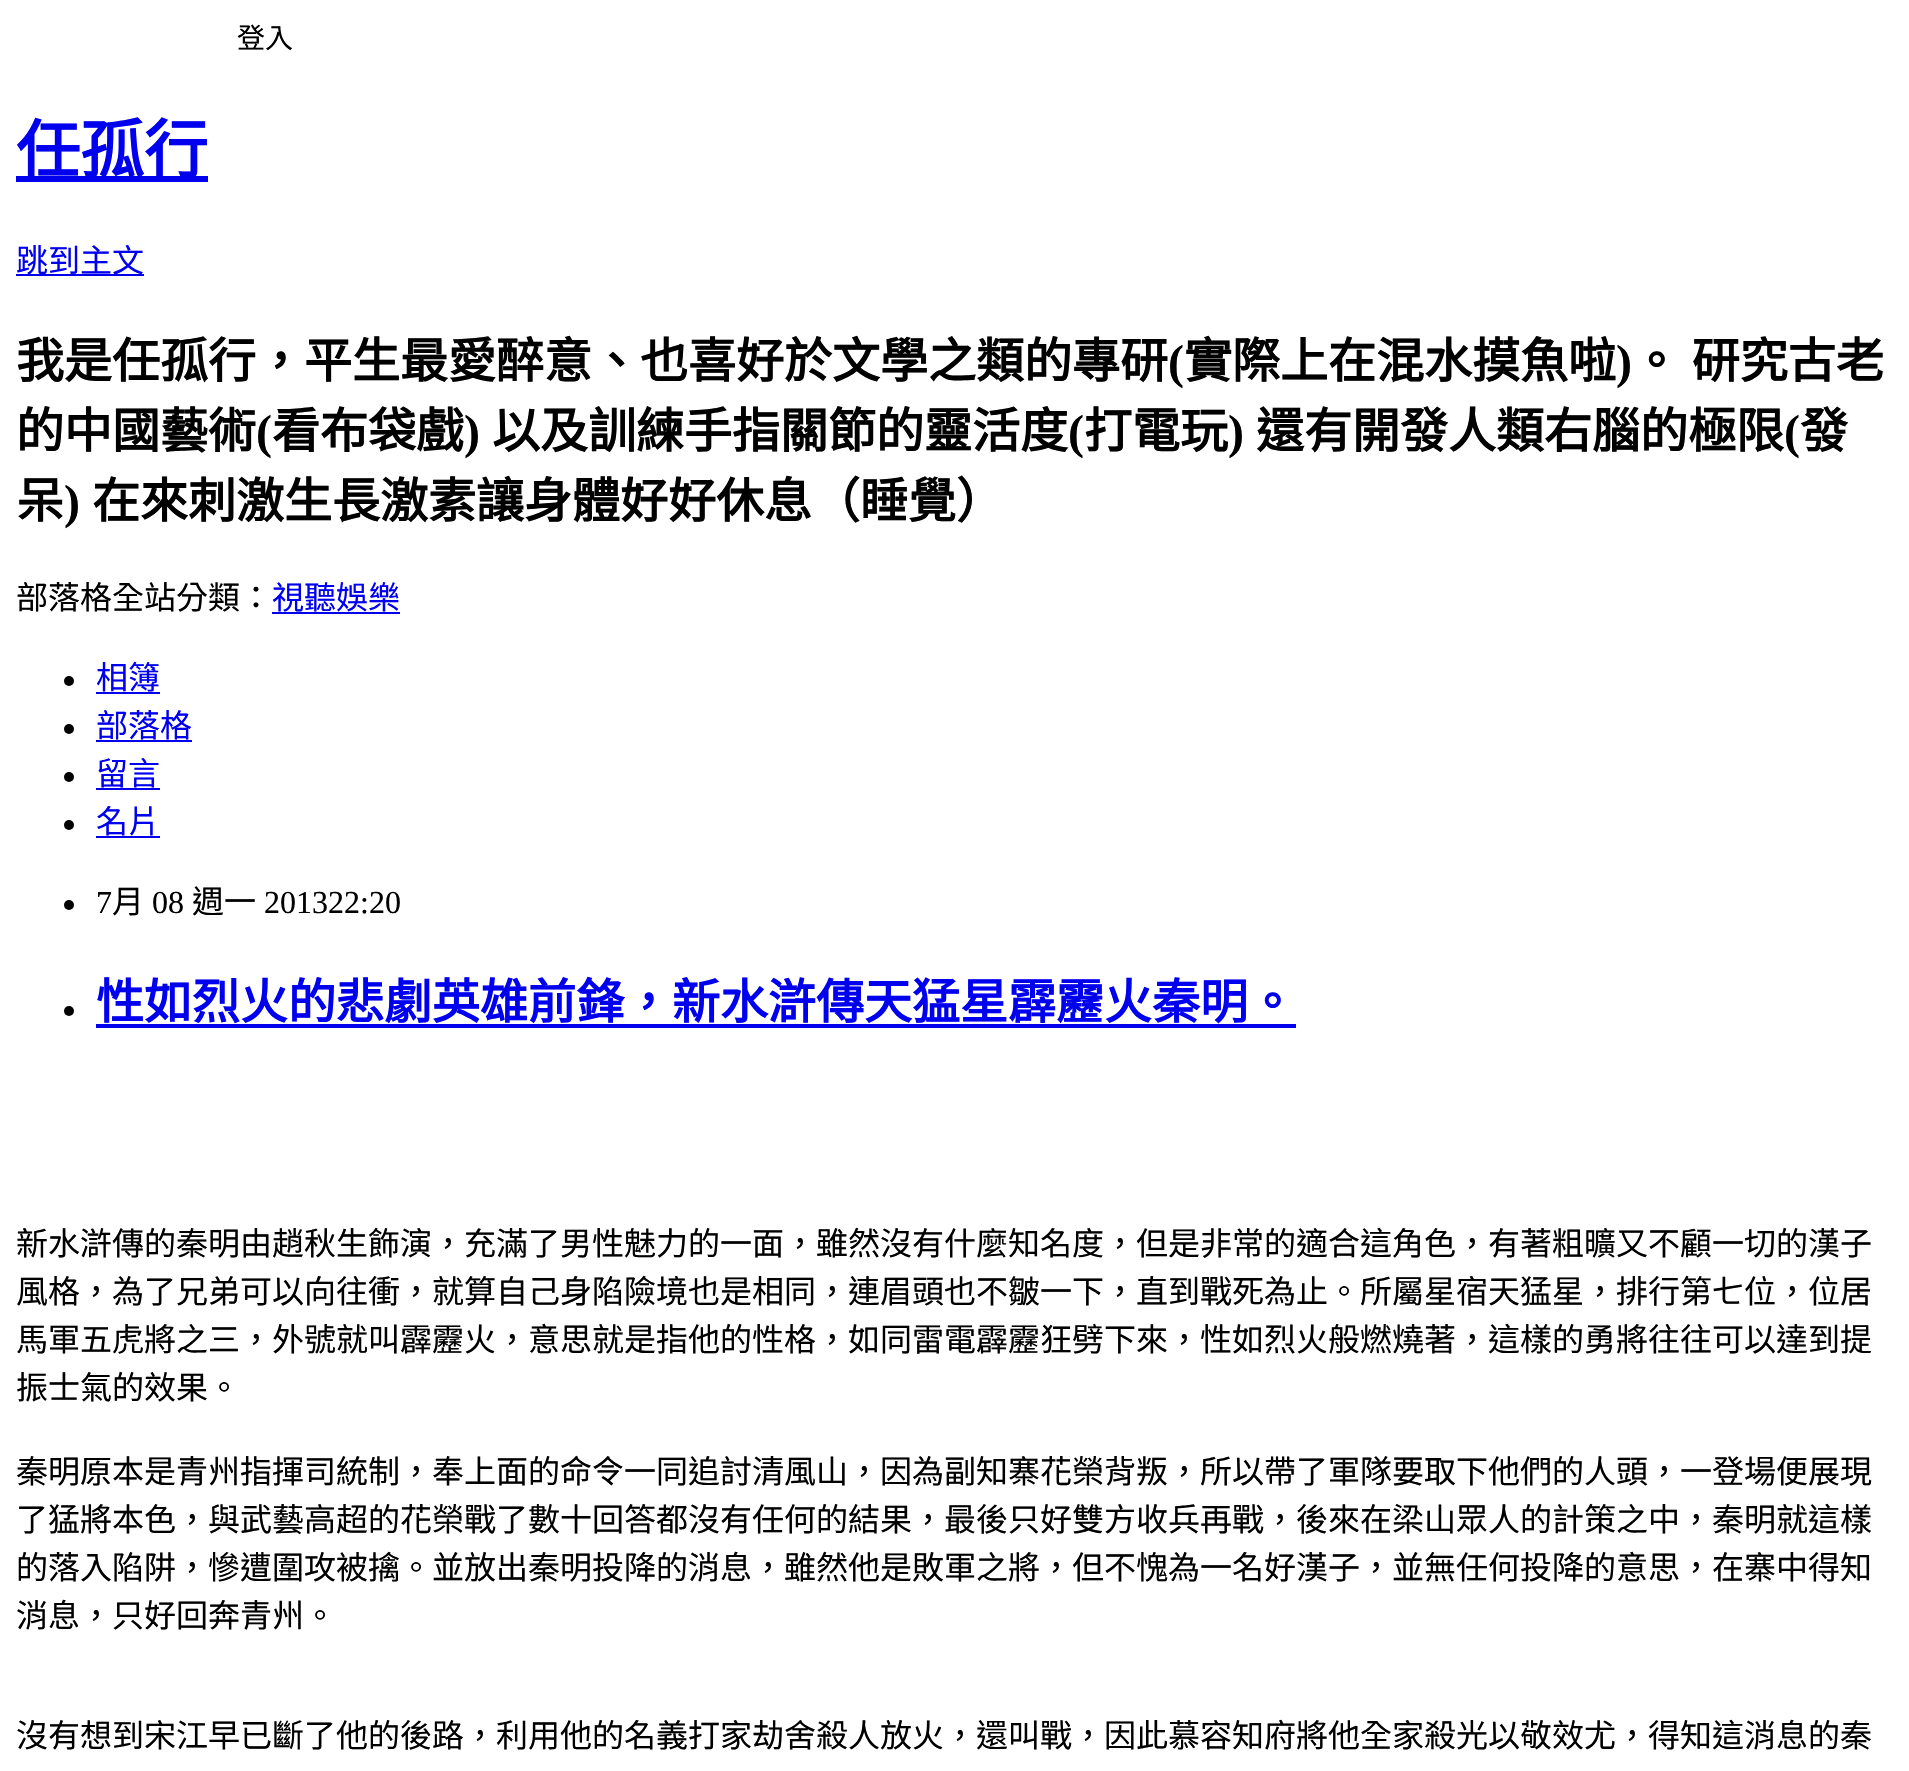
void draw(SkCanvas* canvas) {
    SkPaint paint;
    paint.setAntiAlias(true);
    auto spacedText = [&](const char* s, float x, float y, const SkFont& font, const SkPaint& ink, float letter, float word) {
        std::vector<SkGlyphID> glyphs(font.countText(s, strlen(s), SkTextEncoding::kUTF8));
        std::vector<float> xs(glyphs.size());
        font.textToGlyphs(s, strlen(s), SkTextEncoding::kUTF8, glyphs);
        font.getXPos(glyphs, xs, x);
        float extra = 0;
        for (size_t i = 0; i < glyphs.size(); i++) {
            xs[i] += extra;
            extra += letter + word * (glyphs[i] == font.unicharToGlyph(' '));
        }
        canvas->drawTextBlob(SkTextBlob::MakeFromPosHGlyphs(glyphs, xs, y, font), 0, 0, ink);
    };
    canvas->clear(0xFFFFFFFF);
    SkFont font1(fontMgr->matchFamilyStyle("Noto Sans CJK TC", SkFontStyle::Normal()), 28);
    font1.setSubpixel(true);
    paint.setColor(0xFF000000);
    canvas->drawString("登入", 237, 48, font1, paint);
    paint.setColor(0xFF0000EE);
    canvas->drawRect(SkRect::MakeXYWH(16, 176, 192, 6), paint);
    SkFont font2(fontMgr->matchFamilyStyle("Noto Sans CJK TC", SkFontStyle::Bold()), 64);
    font2.setSubpixel(true);
    canvas->drawString("任孤行", 16, 173, font2, paint);
    canvas->drawRect(SkRect::MakeXYWH(16, 274, 128, 2), paint);
    SkFont font3(fontMgr->matchFamilyStyle("Noto Sans CJK TC", SkFontStyle::Normal()), 32);
    font3.setSubpixel(true);
    canvas->drawString("跳到主文", 16, 272, font3, paint);
    SkFont font4(fontMgr->matchFamilyStyle("Noto Sans CJK TC", SkFontStyle::Bold()), 48);
    font4.setSubpixel(true);
    paint.setColor(0xFF000000);
    canvas->drawString("我是任孤行，平生最愛醉意、也喜好於文學之類的專研", 16, 378, font4, paint);
    SkFont font5(fontMgr->matchFamilyStyle("Liberation Serif", SkFontStyle::Bold()), 48);
    font5.setSubpixel(true);
    canvas->drawString("(", 1168, 378, font5, paint);
    canvas->drawString("實際上在混水摸魚啦", 1184, 378, font4, paint);
    canvas->drawString(")", 1616, 378, font5, paint);
    spacedText("。 研究古老", 1632, 378, font4, paint, 0, 1);
    canvas->drawString("的中國藝術", 16, 448, font4, paint);
    canvas->drawString("(", 256, 448, font5, paint);
    canvas->drawString("看布袋戲", 272, 448, font4, paint);
    canvas->drawString(")", 464, 448, font5, paint);
    canvas->drawString("以及訓練手指關節的靈活度", 492, 448, font4, paint);
    canvas->drawString("(", 1068, 448, font5, paint);
    canvas->drawString("打電玩", 1084, 448, font4, paint);
    canvas->drawString(")", 1228, 448, font5, paint);
    canvas->drawString("還有開發人類右腦的極限", 1256, 448, font4, paint);
    canvas->drawString("(", 1784, 448, font5, paint);
    canvas->drawString("發", 1800, 448, font4, paint);
    canvas->drawString("呆", 16, 518, font4, paint);
    canvas->drawString(")", 64, 518, font5, paint);
    canvas->drawString("在來刺激生長激素讓身體好好休息（睡覺）", 92, 518, font4, paint);
    canvas->drawString("部落格全站分類：", 16, 609, font3, paint);
    paint.setColor(0xFF0000EE);
    canvas->drawString("視聽娛樂", 272, 609, font3, paint);
    canvas->drawRect(SkRect::MakeXYWH(272, 612, 128, 2), paint);
    paint.setColor(0xFF000000);
    canvas->drawCircle(69, 681, 5, paint);
    paint.setColor(0xFF0000EE);
    canvas->drawString("相簿", 96, 689, font3, paint);
    canvas->drawRect(SkRect::MakeXYWH(96, 692, 64, 2), paint);
    paint.setColor(0xFF000000);
    canvas->drawCircle(69, 729, 5, paint);
    paint.setColor(0xFF0000EE);
    canvas->drawString("部落格", 96, 737, font3, paint);
    canvas->drawRect(SkRect::MakeXYWH(96, 740, 96, 2), paint);
    paint.setColor(0xFF000000);
    canvas->drawCircle(69, 777, 5, paint);
    paint.setColor(0xFF0000EE);
    canvas->drawString("留言", 96, 785, font3, paint);
    canvas->drawRect(SkRect::MakeXYWH(96, 788, 64, 2), paint);
    paint.setColor(0xFF000000);
    canvas->drawCircle(69, 825, 5, paint);
    paint.setColor(0xFF0000EE);
    canvas->drawString("名片", 96, 833, font3, paint);
    canvas->drawRect(SkRect::MakeXYWH(96, 836, 64, 2), paint);
    paint.setColor(0xFF000000);
    canvas->drawCircle(69, 905, 5, paint);
    SkFont font6(fontMgr->matchFamilyStyle("Liberation Serif", SkFontStyle::Normal()), 32);
    font6.setSubpixel(true);
    canvas->drawString("7", 96, 913, font6, paint);
    canvas->drawString("月", 112, 913, font3, paint);
    canvas->drawString("08", 152, 913, font6, paint);
    canvas->drawString("週一", 192, 913, font3, paint);
    canvas->drawString("201322:20", 264, 913, font6, paint);
    canvas->drawCircle(69, 1011, 5, paint);
    paint.setColor(0xFF0000EE);
    canvas->drawString("性如烈火的悲劇英雄前鋒，新水滸傳天猛星霹靂火秦明。", 96, 1019, font4, paint);
    canvas->drawRect(SkRect::MakeXYWH(96, 1024, 1200, 4), paint);
    paint.setColor(0xFF000000);
    canvas->drawString("新水滸傳的秦明由趙秋生飾演，充滿了男性魅力的一面，雖然沒有什麼知名度，但是非常的適合這角色，有著粗曠又不顧一切的漢子", 16, 1255, font3, paint);
    canvas->drawString("風格，為了兄弟可以向往衝，就算自己身陷險境也是相同，連眉頭也不皺一下，直到戰死為止。所屬星宿天猛星，排行第七位，位居", 16, 1303, font3, paint);
    canvas->drawString("馬軍五虎將之三，外號就叫霹靂火，意思就是指他的性格，如同雷電霹靂狂劈下來，性如烈火般燃燒著，這樣的勇將往往可以達到提", 16, 1351, font3, paint);
    canvas->drawString("振士氣的效果。", 16, 1399, font3, paint);
    canvas->drawString("秦明原本是青州指揮司統制，奉上面的命令一同追討清風山，因為副知寨花榮背叛，所以帶了軍隊要取下他們的人頭，一登場便展現", 16, 1483, font3, paint);
    canvas->drawString("了猛將本色，與武藝高超的花榮戰了數十回答都沒有任何的結果，最後只好雙方收兵再戰，後來在梁山眾人的計策之中，秦明就這樣", 16, 1531, font3, paint);
    canvas->drawString("的落入陷阱，慘遭圍攻被擒。並放出秦明投降的消息，雖然他是敗軍之將，但不愧為一名好漢子，並無任何投降的意思，在寨中得知", 16, 1579, font3, paint);
    canvas->drawString("消息，只好回奔青州。", 16, 1627, font3, paint);
    canvas->drawString("沒有想到宋江早已斷了他的後路，利用他的名義打家劫舍殺人放火，還叫戰，因此慕容知府將他全家殺光以敬效尤，得知這消息的秦", 16, 1747, font3, paint);
}
